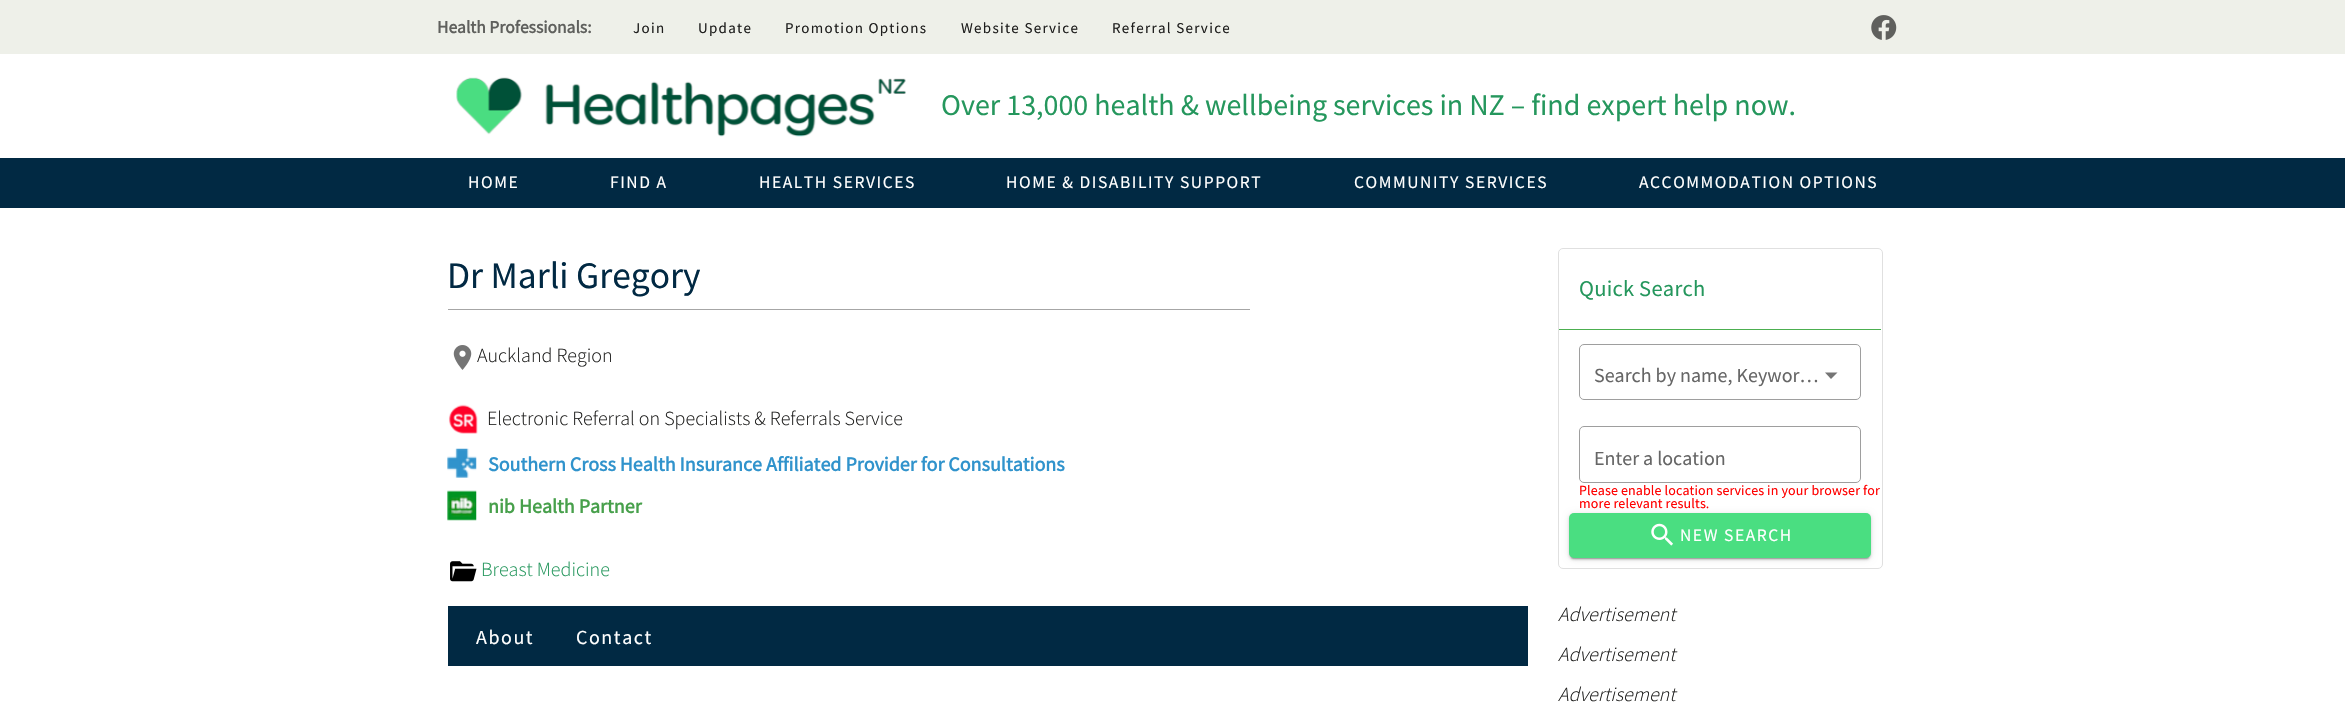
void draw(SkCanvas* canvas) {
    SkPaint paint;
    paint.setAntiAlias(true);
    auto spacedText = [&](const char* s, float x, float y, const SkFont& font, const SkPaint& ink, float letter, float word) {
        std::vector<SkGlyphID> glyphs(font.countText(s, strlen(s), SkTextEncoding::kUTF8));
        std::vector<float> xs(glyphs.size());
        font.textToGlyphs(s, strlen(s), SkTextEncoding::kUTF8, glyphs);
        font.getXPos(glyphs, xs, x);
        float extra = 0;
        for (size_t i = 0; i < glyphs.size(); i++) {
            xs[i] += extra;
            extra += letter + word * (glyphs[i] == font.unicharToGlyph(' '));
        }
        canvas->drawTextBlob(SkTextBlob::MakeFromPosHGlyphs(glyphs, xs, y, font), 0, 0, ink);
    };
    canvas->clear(0xFFFFFFFF);
    paint.setColor(0xFFEEF0E9);
    canvas->drawRect(SkRect::MakeXYWH(0, 0, 2345, 54), paint);
    SkFont font1(fontMgr->matchFamilyStyle("Source Sans Pro", SkFontStyle::Bold()), 17.5f);
    font1.setSubpixel(true);
    paint.setColor(0xFF5F605D);
    canvas->drawString("Health Professionals:", 437, 33, font1, paint);
    SkFont font2(fontMgr->matchFamilyStyle("Source Sans Pro", SkFontStyle::Normal()), 15);
    font2.setSubpixel(true);
    paint.setColor(0xFF1F1F1E);
    spacedText("Join", 633, 33, font2, paint, 1.3f, 0);
    spacedText("Update", 698, 33, font2, paint, 1.3f, 0);
    spacedText("Promotion Options", 785, 33, font2, paint, 1.3f, 0);
    spacedText("Website Service", 961, 33, font2, paint, 1.3f, 0);
    spacedText("Referral Service", 1112, 33, font2, paint, 1.3f, 0);
    canvas->drawImageRect(SkImages::DeferredFromEncodedData(SkData::MakeFromFileName("img1.png")), SkRect::MakeXYWH(1871, 15, 26, 25), SkSamplingOptions());
    canvas->drawImageRect(SkImages::DeferredFromEncodedData(SkData::MakeFromFileName("img2.png")), SkRect::MakeXYWH(456, 77, 451, 60), SkSamplingOptions());
    SkFont font3(fontMgr->matchFamilyStyle("Source Sans Pro", SkFontStyle::Normal()), 30);
    font3.setSubpixel(true);
    paint.setColor(0xFF25975D);
    canvas->drawString("Over 13,000 health & wellbeing services in NZ – find expert help now.", 941, 115, font3, paint);
    paint.setColor(0xFF012943);
    canvas->drawRect(SkRect::MakeXYWH(0, 158, 2345, 50), paint);
    SkFont font4(fontMgr->matchFamilyStyle("Source Sans Pro", SkFontStyle::Normal()), 17.5f);
    font4.setSubpixel(true);
    paint.setColor(0xFFFFFFFF);
    spacedText("HOME", 468, 188, font4, paint, 1.55f, 0);
    spacedText("FIND A", 610, 188, font4, paint, 1.55f, 0);
    spacedText("HEALTH SERVICES", 759, 188, font4, paint, 1.55f, 0);
    spacedText("HOME & DISABILITY SUPPORT", 1006, 188, font4, paint, 1.55f, 0);
    spacedText("COMMUNITY SERVICES", 1354, 188, font4, paint, 1.55f, 0);
    spacedText("ACCOMMODATION OPTIONS", 1639, 188, font4, paint, 1.55f, 0);
    SkFont font5(fontMgr->matchFamilyStyle("Source Sans Pro", SkFontStyle::Normal()), 37.5f);
    font5.setSubpixel(true);
    paint.setColor(0xFF012943);
    canvas->drawString("Dr Marli Gregory", 447, 288, font5, paint);
    paint.setColor(0xFFA6A6A6);
    canvas->drawRect(SkRect::MakeXYWH(448, 309, 802, 1), paint);
    canvas->drawImageRect(SkImages::DeferredFromEncodedData(SkData::MakeFromFileName("img3.png")), SkRect::MakeXYWH(453, 345, 19, 25), SkSamplingOptions());
    SkFont font6(fontMgr->matchFamilyStyle("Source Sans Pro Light", SkFontStyle(300, SkFontStyle::kNormal_Width, SkFontStyle::kUpright_Slant)), 20);
    font6.setSubpixel(true);
    paint.setColor(0xFF1F1F1E);
    canvas->drawString("Auckland Region", 477, 362, font6, paint);
    canvas->drawImageRect(SkImages::DeferredFromEncodedData(SkData::MakeFromFileName("img4.png")), SkRect::MakeXYWH(448, 404, 30, 30), SkSamplingOptions());
    canvas->drawString("Electronic Referral on Specialists & Referrals Service", 487, 425, font6, paint);
    canvas->drawImageRect(SkImages::DeferredFromEncodedData(SkData::MakeFromFileName("img5.png")), SkRect::MakeXYWH(447, 448, 30, 30), SkSamplingOptions());
    SkFont font7(fontMgr->matchFamilyStyle("Source Sans Pro", SkFontStyle::Bold()), 20);
    font7.setSubpixel(true);
    paint.setColor(0xFF3093CC);
    canvas->drawString("Southern Cross Health Insurance Affiliated Provider for Consultations", 488, 471, font7, paint);
    canvas->drawImageRect(SkImages::DeferredFromEncodedData(SkData::MakeFromFileName("img6.png")), SkRect::MakeXYWH(447, 490, 30, 31), SkSamplingOptions());
    paint.setColor(0xFF47A04B);
    canvas->drawString("nib Health Partner", 488, 513, font7, paint);
    canvas->drawImageRect(SkImages::DeferredFromEncodedData(SkData::MakeFromFileName("img7.png")), SkRect::MakeXYWH(450, 561, 27, 21), SkSamplingOptions());
    paint.setColor(0xFF25975D);
    canvas->drawString("Breast Medicine", 481, 576, font6, paint);
    paint.setColor(0xFF012943);
    canvas->drawRect(SkRect::MakeXYWH(448, 606, 1080, 60), paint);
    SkFont font8(fontMgr->matchFamilyStyle("Source Sans Pro", SkFontStyle::Normal()), 20);
    font8.setSubpixel(true);
    paint.setColor(0xFFFFFFFF);
    spacedText("About", 476, 644, font8, paint, 1.55f, 0);
    spacedText("Contact", 576, 644, font8, paint, 1.55f, 0);
    paint.setStyle(SkPaint::kStroke_Style);
    paint.setStrokeWidth(1);
    paint.setColor(0xFFE0E0E0);
    canvas->drawRoundRect(SkRect::MakeXYWH(1558.5f, 248.5f, 324, 320), 4.5f, 4.5f, paint);
    SkFont font9(fontMgr->matchFamilyStyle("Source Sans Pro", SkFontStyle::Normal()), 22.5f);
    font9.setSubpixel(true);
    paint.setStyle(SkPaint::kFill_Style);
    paint.setColor(0xFF25975D);
    spacedText("Quick Search", 1579, 296, font9, paint, 0.25f, 0);
    paint.setColor(0xFF4CAF50);
    canvas->drawRect(SkRect::MakeXYWH(1559, 329, 322, 1), paint);
    paint.setStyle(SkPaint::kStroke_Style);
    paint.setColor(0xFF9E9E9E);
    canvas->drawRoundRect(SkRect::MakeXYWH(1579.5f, 344.5f, 281, 55), 4.5f, 4.5f, paint);
    paint.setStyle(SkPaint::kFill_Style);
    paint.setColor(0xFF666666);
    canvas->drawString("Search by name, Keywor…", 1594, 382, font8, paint);
    paint.setColor(0xFF757575);
    canvas->drawPath(SkPathBuilder().moveTo(1825, 372.5f).lineTo(1831, 379).lineTo(1837.5f, 372.5f).close().detach(), paint);
    paint.setStyle(SkPaint::kStroke_Style);
    paint.setColor(0xFF9E9E9E);
    canvas->drawRoundRect(SkRect::MakeXYWH(1579.5f, 426.5f, 281, 56), 4.5f, 4.5f, paint);
    paint.setStyle(SkPaint::kFill_Style);
    paint.setColor(0xFF666666);
    canvas->drawString("Enter a location", 1594, 465, font8, paint);
    SkFont font10(fontMgr->matchFamilyStyle("Source Sans Pro", SkFontStyle::Normal()), 14);
    font10.setSubpixel(true);
    paint.setColor(0xFFFF0000);
    spacedText("Please enable location services in your browser for", 1579, 495, font10, paint, 0.12f, 0);
    paint.setColor(0x1F000000);
    paint.setMaskFilter(SkMaskFilter::MakeBlur(kNormal_SkBlurStyle, 3));
    canvas->drawRoundRect(SkRect::MakeXYWH(1569, 514, 302, 45), 5, 5, paint);
    paint.setMaskFilter(nullptr);
    paint.setColor(0xFFFF0000);
    spacedText("more relevant results.", 1579, 508, font10, paint, 0.12f, 0);
    paint.setColor(0x24000000);
    paint.setMaskFilter(SkMaskFilter::MakeBlur(kNormal_SkBlurStyle, 1));
    canvas->drawRoundRect(SkRect::MakeXYWH(1569, 515, 302, 45), 5, 5, paint);
    paint.setMaskFilter(nullptr);
    paint.setColor(0x33000000);
    paint.setMaskFilter(SkMaskFilter::MakeBlur(kNormal_SkBlurStyle, 0.5f));
    canvas->drawRoundRect(SkRect::MakeXYWH(1571, 519, 298, 40), 2.5f, 2.5f, paint);
    paint.setMaskFilter(nullptr);
    paint.setColor(0xFF4ADE81);
    canvas->drawRoundRect(SkRect::MakeXYWH(1569, 513, 302, 45), 5, 5, paint);
    canvas->drawImageRect(SkImages::DeferredFromEncodedData(SkData::MakeFromFileName("img8.png")), SkRect::MakeXYWH(1651, 523, 22, 23), SkSamplingOptions());
    paint.setColor(0xFFFFFFFF);
    spacedText("NEW SEARCH", 1680, 541, font4, paint, 1.55f, 0);
    SkFont font11(fontMgr->matchFamilyStyle("Source Sans Pro Light", SkFontStyle(300, SkFontStyle::kNormal_Width, SkFontStyle::kItalic_Slant)), 20);
    font11.setSubpixel(true);
    paint.setColor(0xFF1F1F1E);
    canvas->drawString("Advertisement", 1558, 621, font11, paint);
    canvas->drawString("Advertisement", 1558, 661, font11, paint);
    canvas->drawString("Advertisement", 1558, 701, font11, paint);
}
